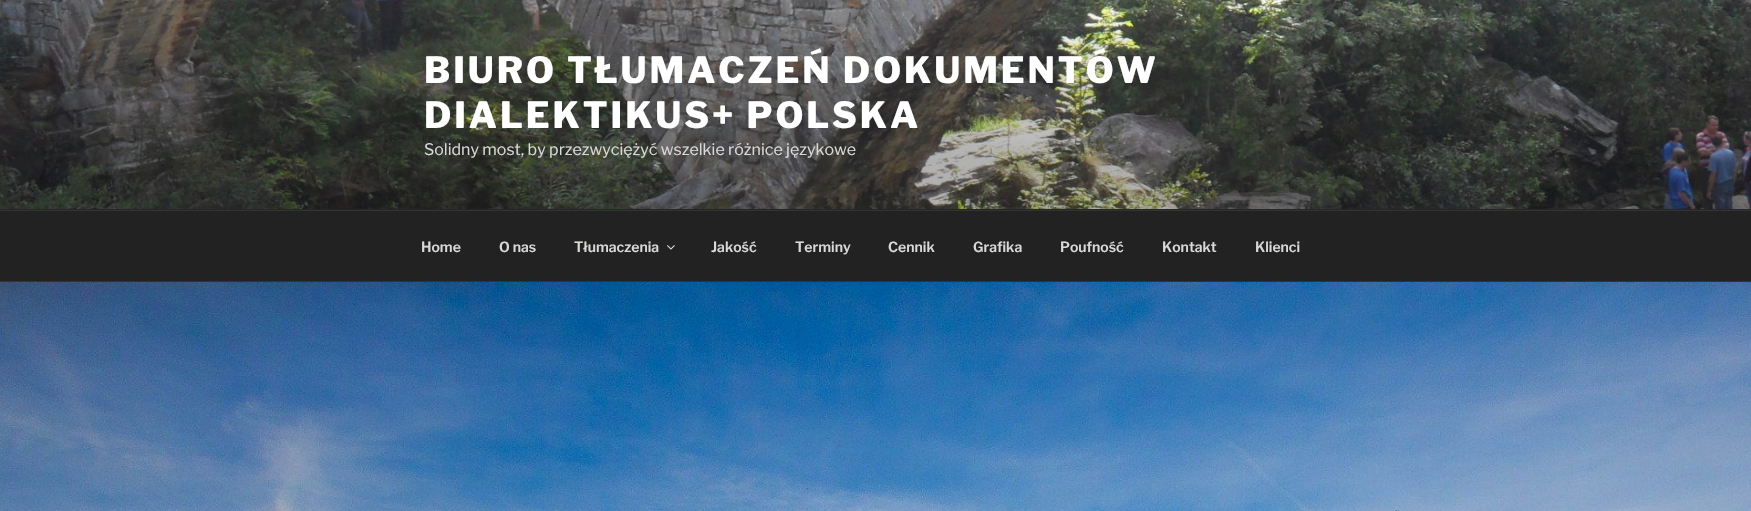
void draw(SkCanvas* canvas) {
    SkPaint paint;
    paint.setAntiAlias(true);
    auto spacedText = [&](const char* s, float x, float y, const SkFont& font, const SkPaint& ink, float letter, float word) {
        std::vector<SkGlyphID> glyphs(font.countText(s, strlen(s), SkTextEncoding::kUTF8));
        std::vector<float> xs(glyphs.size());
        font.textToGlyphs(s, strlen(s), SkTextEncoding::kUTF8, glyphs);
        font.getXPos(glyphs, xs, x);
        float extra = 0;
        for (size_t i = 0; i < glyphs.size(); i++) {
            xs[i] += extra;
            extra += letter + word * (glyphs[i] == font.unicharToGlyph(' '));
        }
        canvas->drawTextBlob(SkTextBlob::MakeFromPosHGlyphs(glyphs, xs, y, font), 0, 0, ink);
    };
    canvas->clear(0xFFFFFFFF);
    paint.setColor(0xFF262626);
    canvas->drawRect(SkRect::MakeXYWH(0, 209, 1751, 1), paint);
    canvas->drawImageRect(SkImages::DeferredFromEncodedData(SkData::MakeFromFileName("img1.png")), SkRect::MakeXYWH(0, 0, 1751, 209), SkSamplingOptions());
    SkFont font1(fontMgr->matchFamilyStyle("Libre Franklin", SkFontStyle(800, SkFontStyle::kNormal_Width, SkFontStyle::kUpright_Slant)), 36);
    font1.setSubpixel(true);
    paint.setColor(0xFFFFFFFF);
    spacedText("BIURO TŁUMACZEŃ DOKUMENTÓW", 424, 83, font1, paint, 2.9f, 0);
    spacedText("DIALEKTIKUS+ POLSKA", 424, 128, font1, paint, 2.9f, 0);
    SkFont font2(fontMgr->matchFamilyStyle("Libre Franklin", SkFontStyle::Normal()), 16);
    font2.setSubpixel(true);
    paint.setColor(0xFFD9D9D8);
    canvas->drawString("Solidny most, by przezwyciężyć wszelkie różnice językowe", 424, 155, font2, paint);
    paint.setColor(0xFF222222);
    canvas->drawRect(SkRect::MakeXYWH(0, 211, 1751, 70), paint);
    paint.setColor(0xFF333333);
    canvas->drawRect(SkRect::MakeXYWH(0, 210, 1751, 1), paint);
    canvas->drawRect(SkRect::MakeXYWH(0, 281, 1751, 1), paint);
    SkFont font3(fontMgr->matchFamilyStyle("Libre Franklin", SkFontStyle(600, SkFontStyle::kNormal_Width, SkFontStyle::kUpright_Slant)), 14);
    font3.setSubpixel(true);
    paint.setColor(0xFFD9D9D8);
    canvas->drawString("Home", 421, 252, font3, paint);
    canvas->drawString("O nas", 499, 252, font3, paint);
    canvas->drawString("Tłumaczenia", 574, 252, font3, paint);
    canvas->drawImageRect(SkImages::DeferredFromEncodedData(SkData::MakeFromFileName("img2.png")), SkRect::MakeXYWH(667, 245, 8, 5), SkSamplingOptions());
    canvas->drawString("Jakość", 711, 252, font3, paint);
    canvas->drawString("Terminy", 795, 252, font3, paint);
    canvas->drawString("Cennik", 888, 252, font3, paint);
    canvas->drawString("Grafika", 973, 252, font3, paint);
    canvas->drawString("Poufność", 1060, 252, font3, paint);
    canvas->drawString("Kontakt", 1162, 252, font3, paint);
    canvas->drawString("Klienci", 1255, 252, font3, paint);
    canvas->drawImageRect(SkImages::DeferredFromEncodedData(SkData::MakeFromFileName("img3.png")), SkRect::MakeXYWH(0, 282, 1751, 229), SkSamplingOptions());
}
